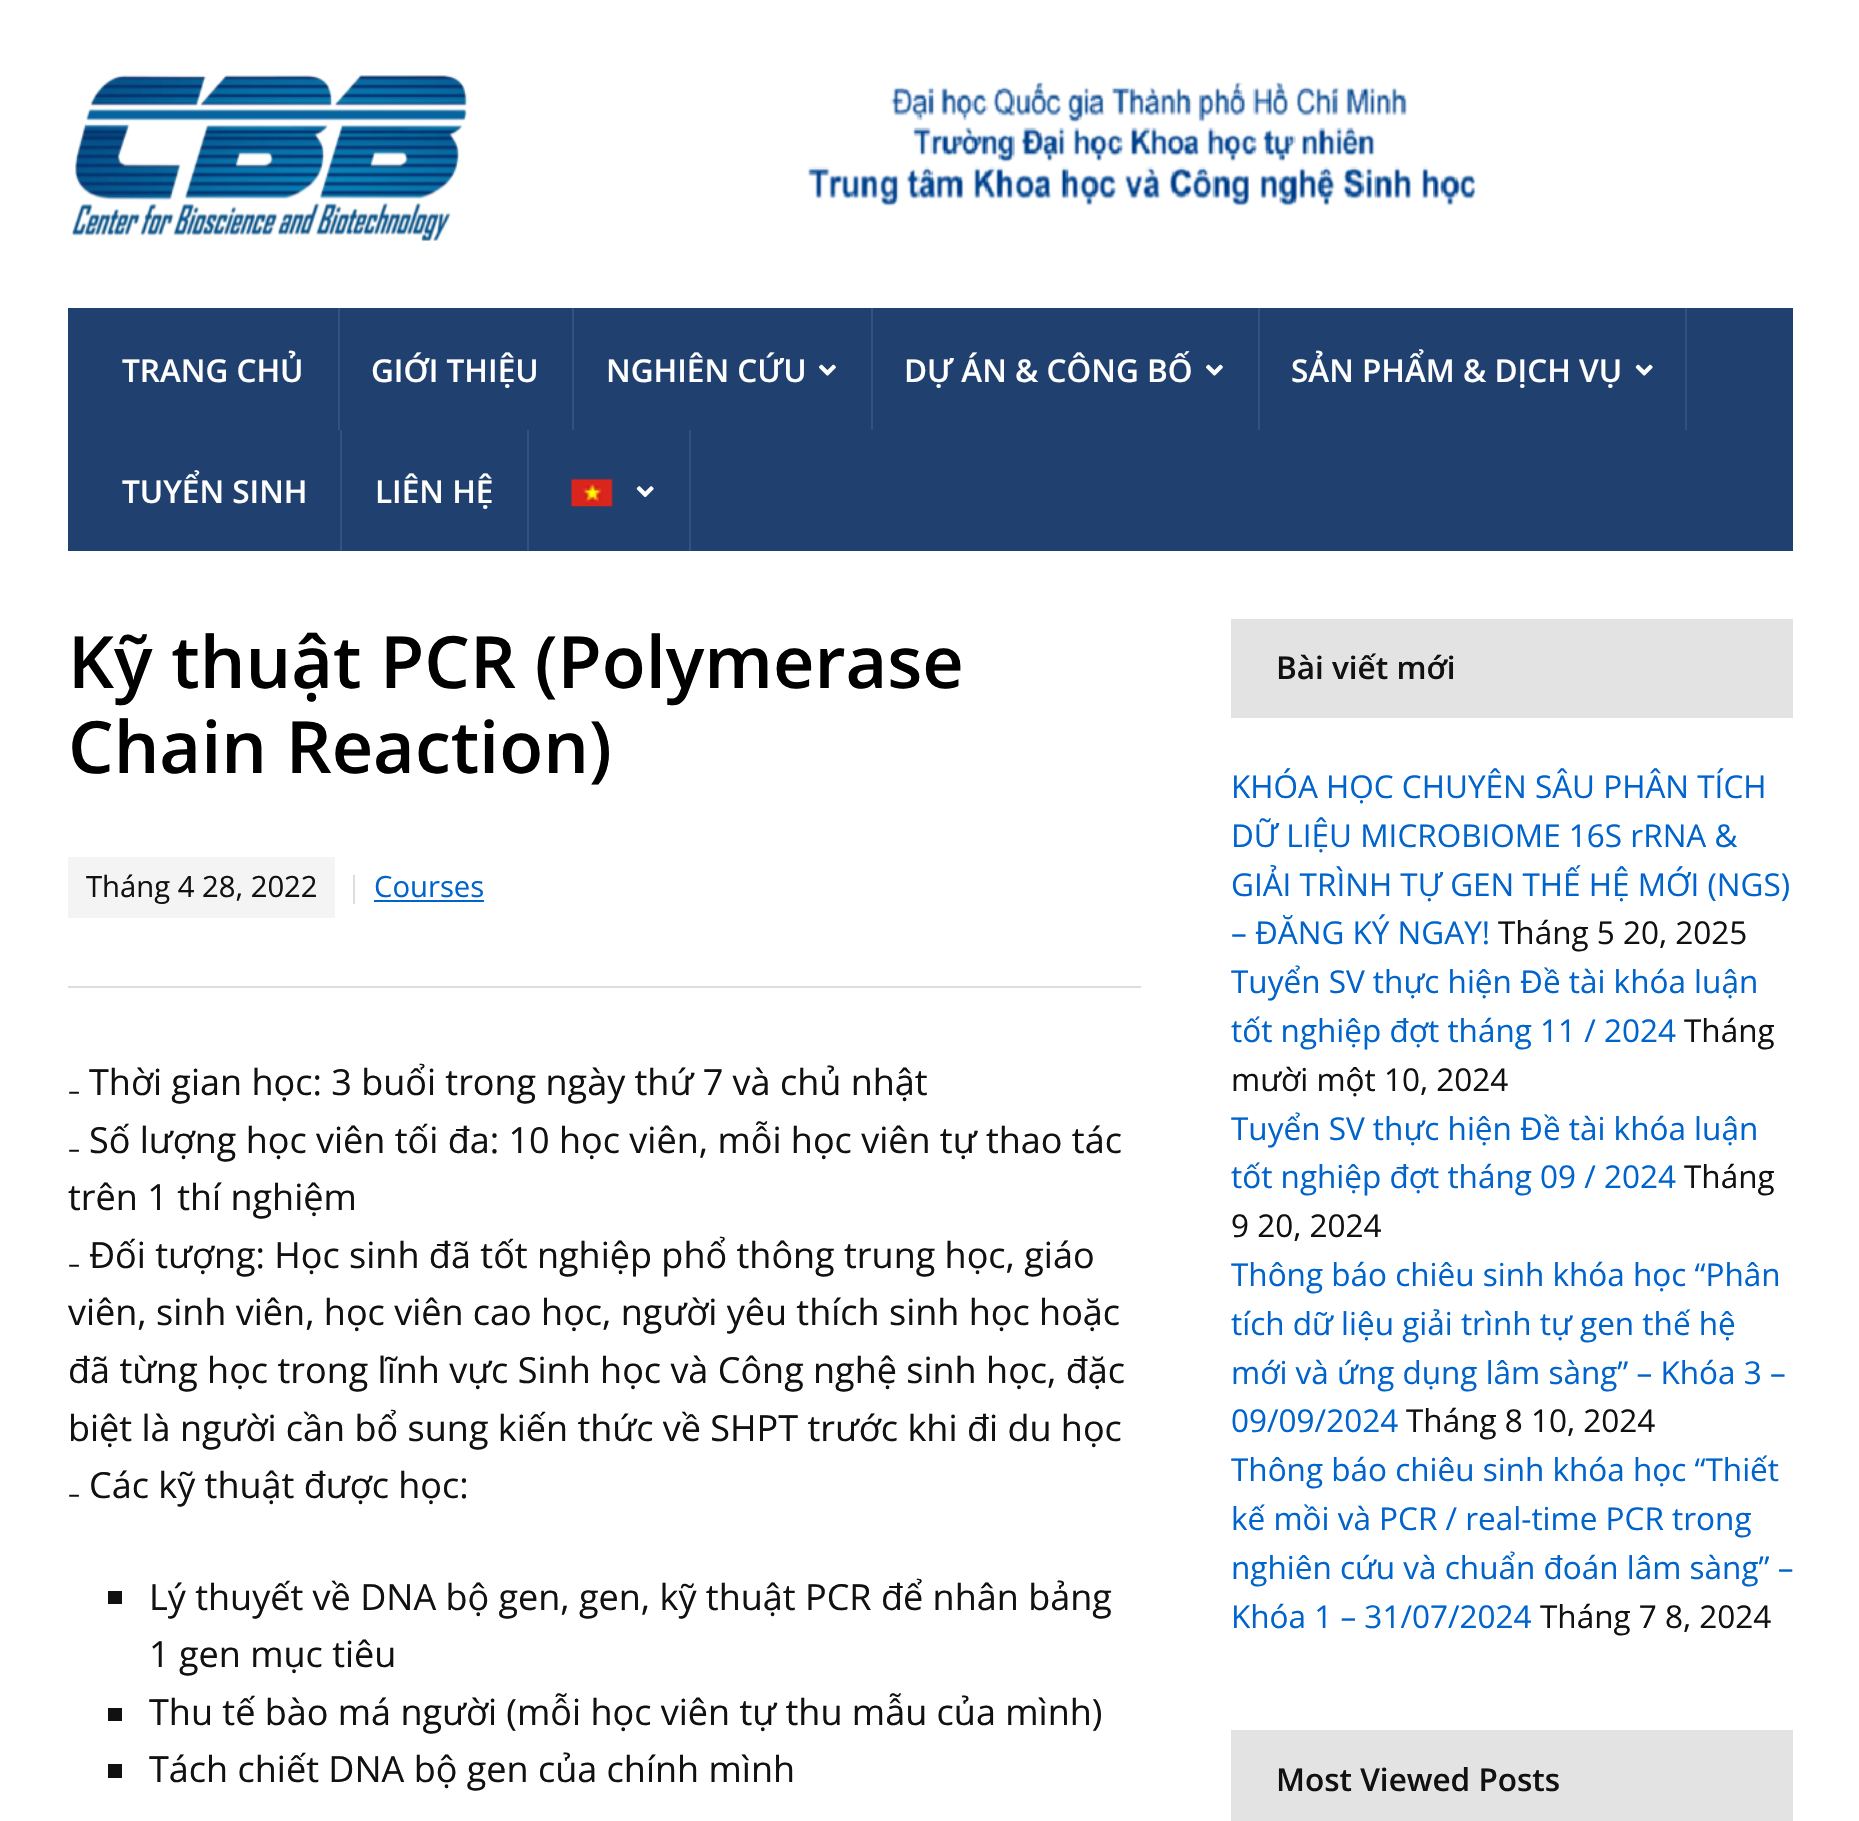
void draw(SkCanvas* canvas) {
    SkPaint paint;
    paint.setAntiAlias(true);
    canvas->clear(0xFFFFFFFF);
    canvas->drawImageRect(SkImages::DeferredFromEncodedData(SkData::MakeFromFileName("img1.png")), SkRect::MakeXYWH(71, 75, 1405, 166), SkSamplingOptions());
    paint.setColor(0xFF204070);
    canvas->drawRect(SkRect::MakeXYWH(68, 308, 1725, 243), paint);
    paint.setColor(0xFF325282);
    canvas->drawRect(SkRect::MakeXYWH(338, 308, 2, 122), paint);
    SkFont font1(fontMgr->matchFamilyStyle("Open Sans", SkFontStyle(600, SkFontStyle::kNormal_Width, SkFontStyle::kUpright_Slant)), 31.5f);
    font1.setSubpixel(true);
    paint.setColor(0xFFFFFFFF);
    canvas->drawString("TRANG CHỦ", 122, 382, font1, paint);
    paint.setColor(0xFF325282);
    canvas->drawRect(SkRect::MakeXYWH(572, 308, 2, 122), paint);
    paint.setColor(0xFFFFFFFF);
    canvas->drawString("GIỚI THIỆU", 371, 382, font1, paint);
    paint.setColor(0xFF325282);
    canvas->drawRect(SkRect::MakeXYWH(871, 308, 2, 122), paint);
    paint.setColor(0xFFFFFFFF);
    canvas->drawString("NGHIÊN CỨU", 606, 382, font1, paint);
    canvas->drawImageRect(SkImages::DeferredFromEncodedData(SkData::MakeFromFileName("img2.png")), SkRect::MakeXYWH(819, 364, 17, 12), SkSamplingOptions());
    paint.setColor(0xFF325282);
    canvas->drawRect(SkRect::MakeXYWH(1258, 308, 2, 122), paint);
    paint.setColor(0xFFFFFFFF);
    canvas->drawString("DỰ ÁN & CÔNG BỐ", 904, 382, font1, paint);
    canvas->drawImageRect(SkImages::DeferredFromEncodedData(SkData::MakeFromFileName("img2.png")), SkRect::MakeXYWH(1206, 364, 17, 12), SkSamplingOptions());
    paint.setColor(0xFF325282);
    canvas->drawRect(SkRect::MakeXYWH(1685, 308, 2, 122), paint);
    paint.setColor(0xFFFFFFFF);
    canvas->drawString("SẢN PHẨM & DỊCH VỤ", 1291, 382, font1, paint);
    canvas->drawImageRect(SkImages::DeferredFromEncodedData(SkData::MakeFromFileName("img3.png")), SkRect::MakeXYWH(1635, 364, 18, 12), SkSamplingOptions());
    paint.setColor(0xFF325282);
    canvas->drawRect(SkRect::MakeXYWH(340, 430, 2, 121), paint);
    paint.setColor(0xFFFFFFFF);
    canvas->drawString("TUYỂN SINH", 122, 503, font1, paint);
    paint.setColor(0xFF325282);
    canvas->drawRect(SkRect::MakeXYWH(527, 430, 2, 121), paint);
    paint.setColor(0xFFFFFFFF);
    canvas->drawString("LIÊN HỆ", 375, 503, font1, paint);
    paint.setColor(0xFF325282);
    canvas->drawRect(SkRect::MakeXYWH(689, 430, 2, 121), paint);
    canvas->drawImageRect(SkImages::DeferredFromEncodedData(SkData::MakeFromFileName("img4.png")), SkRect::MakeXYWH(571, 478, 42, 29), SkSamplingOptions());
    canvas->drawImageRect(SkImages::DeferredFromEncodedData(SkData::MakeFromFileName("img5.png")), SkRect::MakeXYWH(636, 486, 18, 12), SkSamplingOptions());
    paint.setColor(0xFFDDDDDD);
    canvas->drawRect(SkRect::MakeXYWH(68, 986, 1073, 2), paint);
    SkFont font2(fontMgr->matchFamilyStyle("Open Sans", SkFontStyle(600, SkFontStyle::kNormal_Width, SkFontStyle::kUpright_Slant)), 72);
    font2.setSubpixel(true);
    paint.setColor(0xFF000000);
    canvas->drawString("Kỹ thuật PCR (Polymerase", 68, 688, font2, paint);
    canvas->drawString("Chain Reaction)", 68, 773, font2, paint);
    paint.setColor(0xFFF4F4F4);
    canvas->drawRect(SkRect::MakeXYWH(68, 857, 267, 61), paint);
    SkFont font3(fontMgr->matchFamilyStyle("Open Sans", SkFontStyle::Normal()), 29.25f);
    font3.setSubpixel(true);
    paint.setColor(0xFF111111);
    canvas->drawString("Tháng 4 28, 2022", 86, 897, font3, paint);
    paint.setColor(0xFFDDDDDD);
    canvas->drawString("|", 346, 897, font3, paint);
    paint.setColor(0xFF0064CC);
    canvas->drawString("Courses", 374, 897, font3, paint);
    canvas->drawRect(SkRect::MakeXYWH(374, 900, 110, 2), paint);
    SkFont font4(fontMgr->matchFamilyStyle("Noto Sans", SkFontStyle::Normal()), 36);
    font4.setSubpixel(true);
    paint.setColor(0xFF111111);
    canvas->drawString("₋", 68, 1095, font4, paint);
    SkFont font5(fontMgr->matchFamilyStyle("Open Sans", SkFontStyle::Normal()), 36);
    font5.setSubpixel(true);
    canvas->drawString("Thời gian học: 3 buổi trong ngày thứ 7 và chủ nhật", 89, 1095, font5, paint);
    canvas->drawString("₋", 68, 1153, font4, paint);
    canvas->drawString("Số lượng học viên tối đa: 10 học viên, mỗi học viên tự thao tác", 89, 1153, font5, paint);
    canvas->drawString("trên 1 thí nghiệm", 68, 1210, font5, paint);
    canvas->drawString("₋", 68, 1268, font4, paint);
    canvas->drawString("Đối tượng: Học sinh đã tốt nghiệp phổ thông trung học, giáo", 89, 1268, font5, paint);
    canvas->drawString("viên, sinh viên, học viên cao học, người yêu thích sinh học hoặc", 68, 1325, font5, paint);
    canvas->drawString("đã từng học trong lĩnh vực Sinh học và Công nghệ sinh học, đặc", 68, 1383, font5, paint);
    canvas->drawString("biệt là người cần bổ sung kiến thức về SHPT trước khi đi du học", 68, 1441, font5, paint);
    canvas->drawString("₋", 68, 1498, font4, paint);
    canvas->drawString("Các kỹ thuật được học:", 89, 1498, font5, paint);
    canvas->drawRect(SkRect::MakeXYWH(108, 1591, 14, 13), paint);
    canvas->drawString("Lý thuyết về DNA bộ gen, gen, kỹ thuật PCR để nhân bảng", 149, 1610, font5, paint);
    canvas->drawString("1 gen mục tiêu", 149, 1667, font5, paint);
    canvas->drawRect(SkRect::MakeXYWH(108, 1708, 14, 13), paint);
    canvas->drawString("Thu tế bào má người (mỗi học viên tự thu mẫu của mình)", 149, 1725, font5, paint);
    canvas->drawRect(SkRect::MakeXYWH(108, 1764, 14, 14), paint);
    canvas->drawString("Tách chiết DNA bộ gen của chính mình", 149, 1782, font5, paint);
    paint.setColor(0xFFE3E3E3);
    canvas->drawRect(SkRect::MakeXYWH(1231, 619, 562, 99), paint);
    paint.setColor(0xFF111111);
    canvas->drawString("Bài viết mới", 1276, 679, font1, paint);
    SkFont font6(fontMgr->matchFamilyStyle("Open Sans", SkFontStyle::Normal()), 31.5f);
    font6.setSubpixel(true);
    paint.setColor(0xFF0064CC);
    canvas->drawString("KHÓA HỌC CHUYÊN SÂU PHÂN TÍCH", 1231, 798, font6, paint);
    canvas->drawString("DỮ LIỆU MICROBIOME 16S rRNA &", 1231, 847, font6, paint);
    canvas->drawString("GIẢI TRÌNH TỰ GEN THẾ HỆ MỚI (NGS)", 1231, 896, font6, paint);
    canvas->drawString("– ĐĂNG KÝ NGAY!", 1231, 944, font6, paint);
    paint.setColor(0xFF111111);
    canvas->drawString("Tháng 5 20, 2025", 1498, 944, font6, paint);
    paint.setColor(0xFF0064CC);
    canvas->drawString("Tuyển SV thực hiện Đề tài khóa luận", 1231, 993, font6, paint);
    canvas->drawString("tốt nghiệp đợt tháng 11 / 2024", 1231, 1042, font6, paint);
    paint.setColor(0xFF111111);
    canvas->drawString("Tháng", 1684, 1042, font6, paint);
    canvas->drawString("mười một 10, 2024", 1231, 1091, font6, paint);
    paint.setColor(0xFF0064CC);
    canvas->drawString("Tuyển SV thực hiện Đề tài khóa luận", 1231, 1140, font6, paint);
    canvas->drawString("tốt nghiệp đợt tháng 09 / 2024", 1231, 1188, font6, paint);
    paint.setColor(0xFF111111);
    canvas->drawString("Tháng", 1684, 1188, font6, paint);
    canvas->drawString("9 20, 2024", 1231, 1237, font6, paint);
    paint.setColor(0xFF0064CC);
    canvas->drawString("Thông báo chiêu sinh khóa học “Phân", 1231, 1286, font6, paint);
    canvas->drawString("tích dữ liệu giải trình tự gen thế hệ", 1231, 1335, font6, paint);
    canvas->drawString("mới và ứng dụng lâm sàng” – Khóa 3 –", 1231, 1384, font6, paint);
    canvas->drawString("09/09/2024", 1231, 1432, font6, paint);
    paint.setColor(0xFF111111);
    canvas->drawString("Tháng 8 10, 2024", 1406, 1432, font6, paint);
    paint.setColor(0xFF0064CC);
    canvas->drawString("Thông báo chiêu sinh khóa học “Thiết", 1231, 1481, font6, paint);
    canvas->drawString("kế mồi và PCR / real-time PCR trong", 1231, 1530, font6, paint);
    canvas->drawString("nghiên cứu và chuẩn đoán lâm sàng” –", 1231, 1579, font6, paint);
    canvas->drawString("Khóa 1 – 31/07/2024", 1231, 1628, font6, paint);
    paint.setColor(0xFF111111);
    canvas->drawString("Tháng 7 8, 2024", 1540, 1628, font6, paint);
    paint.setColor(0xFFE3E3E3);
    canvas->drawRect(SkRect::MakeXYWH(1231, 1730, 562, 91), paint);
    paint.setColor(0xFF111111);
    canvas->drawString("Most Viewed Posts", 1276, 1791, font1, paint);
}
